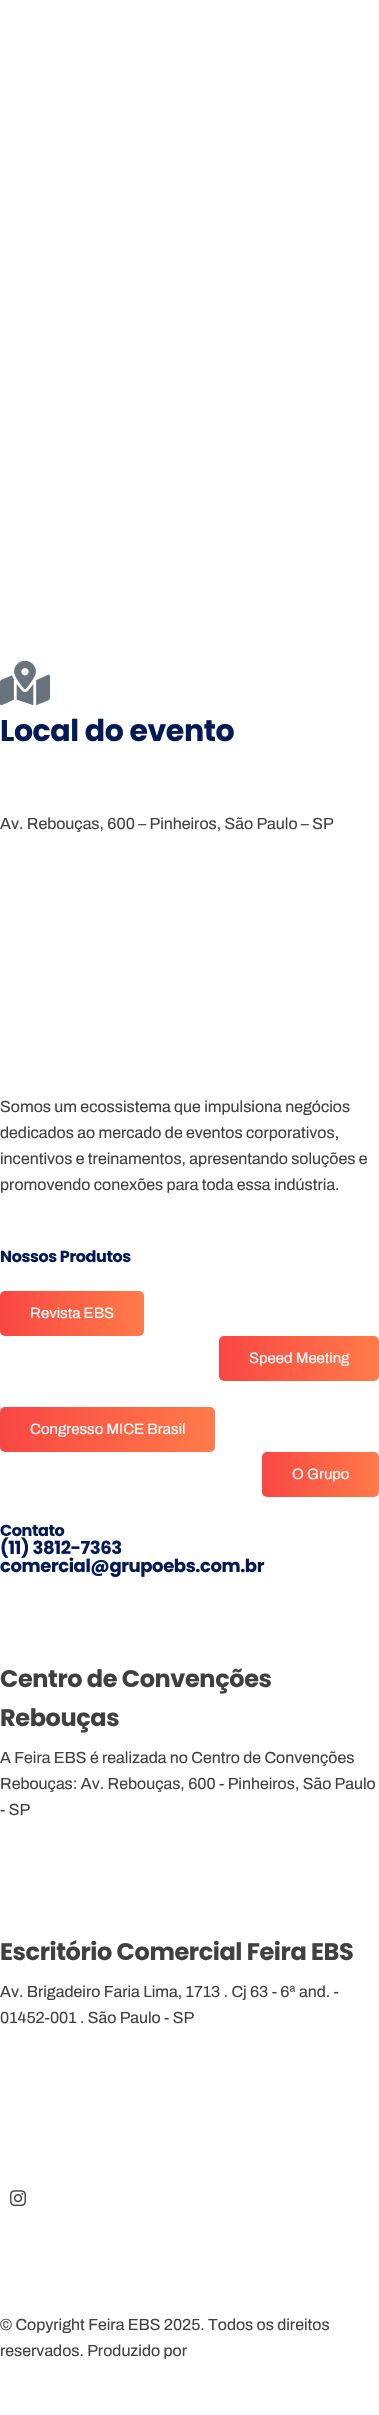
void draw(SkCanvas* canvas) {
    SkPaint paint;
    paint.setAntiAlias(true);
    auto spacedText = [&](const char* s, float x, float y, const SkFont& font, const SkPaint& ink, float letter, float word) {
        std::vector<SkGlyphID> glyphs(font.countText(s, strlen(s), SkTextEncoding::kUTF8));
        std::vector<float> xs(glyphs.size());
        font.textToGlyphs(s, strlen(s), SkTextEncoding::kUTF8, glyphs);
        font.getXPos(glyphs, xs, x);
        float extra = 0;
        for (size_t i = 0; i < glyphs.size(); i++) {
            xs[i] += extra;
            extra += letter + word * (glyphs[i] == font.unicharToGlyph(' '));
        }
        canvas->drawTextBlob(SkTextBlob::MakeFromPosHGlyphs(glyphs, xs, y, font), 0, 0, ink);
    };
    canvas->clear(0xFFFFFFFF);
    canvas->drawImageRect(SkImages::DeferredFromEncodedData(SkData::MakeFromFileName("img1.png")), SkRect::MakeXYWH(0, 660, 50, 46), SkSamplingOptions());
    SkFont font1(fontMgr->matchFamilyStyle("Poppins", SkFontStyle::Bold()), 30);
    font1.setSubpixel(true);
    paint.setColor(0xFF041A57);
    spacedText("Local do evento", 0, 741, font1, paint, -0.4f, 0);
    SkFont font2(fontMgr->matchFamilyStyle("Archivo", SkFontStyle::Normal()), 16);
    font2.setSubpixel(true);
    paint.setColor(0xFF404040);
    canvas->drawString("Av. Rebouças, 600 – Pinheiros, São Paulo – SP", 0, 829, font2, paint);
    canvas->drawString("Somos um ecossistema que impulsiona negócios", 0, 1112, font2, paint);
    canvas->drawString("dedicados ao mercado de eventos corporativos,", 0, 1138, font2, paint);
    canvas->drawString("incentivos e treinamentos, apresentando soluções e", 0, 1164, font2, paint);
    canvas->drawString("promovendo conexões para toda essa indústria.", 0, 1190, font2, paint);
    SkFont font3(fontMgr->matchFamilyStyle("Poppins", SkFontStyle::Bold()), 16);
    font3.setSubpixel(true);
    paint.setColor(0xFF041A57);
    spacedText("Nossos Produtos", 0, 1262, font3, paint, -0.4f, 0);
    {
        const SkColor colors[] = {0xFFF94743, 0xFFFF7C49, 0xFFF94743};
        const float stops[] = {0, 0.51f, 1};
        const SkPoint ends[] = {{0, 1314}, {288, 1314}};
        paint.setShader(SkGradientShader::MakeLinear(ends, colors, stops, 3, SkTileMode::kClamp));
        paint.setAlpha(255);
    }
    canvas->drawRoundRect(SkRect::MakeXYWH(0, 1291, 144, 45), 5, 5, paint);
    SkFont font4(fontMgr->matchFamilyStyle("Archivo", SkFontStyle::Normal()), 15);
    font4.setSubpixel(true);
    paint.setShader(nullptr);
    paint.setColor(0xFFFFFFFF);
    canvas->drawString("Revista EBS", 30, 1318, font4, paint);
    {
        const SkColor colors[] = {0xFFF94743, 0xFFFF7C49, 0xFFF94743};
        const float stops[] = {0, 0.51f, 1};
        const SkPoint ends[] = {{219, 1359}, {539, 1359}};
        paint.setShader(SkGradientShader::MakeLinear(ends, colors, stops, 3, SkTileMode::kClamp));
        paint.setAlpha(255);
    }
    canvas->drawRoundRect(SkRect::MakeXYWH(219, 1336, 160, 45), 5, 5, paint);
    paint.setShader(nullptr);
    paint.setColor(0xFFFFFFFF);
    canvas->drawString("Speed Meeting", 249, 1363, font4, paint);
    {
        const SkColor colors[] = {0xFFF94743, 0xFFFF7C49, 0xFFF94743};
        const float stops[] = {0, 0.51f, 1};
        const SkPoint ends[] = {{0, 1430}, {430, 1430}};
        paint.setShader(SkGradientShader::MakeLinear(ends, colors, stops, 3, SkTileMode::kClamp));
        paint.setAlpha(255);
    }
    canvas->drawRoundRect(SkRect::MakeXYWH(0, 1407, 215, 45), 5, 5, paint);
    paint.setShader(nullptr);
    paint.setColor(0xFFFFFFFF);
    canvas->drawString("Congresso MICE Brasil", 30, 1434, font4, paint);
    {
        const SkColor colors[] = {0xFFF94743, 0xFFFF7C49, 0xFFF94743};
        const float stops[] = {0, 0.51f, 1};
        const SkPoint ends[] = {{262, 1475}, {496, 1475}};
        paint.setShader(SkGradientShader::MakeLinear(ends, colors, stops, 3, SkTileMode::kClamp));
        paint.setAlpha(255);
    }
    canvas->drawRoundRect(SkRect::MakeXYWH(262, 1452, 117, 45), 5, 5, paint);
    paint.setShader(nullptr);
    paint.setColor(0xFFFFFFFF);
    canvas->drawString("O Grupo", 292, 1479, font4, paint);
    paint.setColor(0xFF041A57);
    spacedText("Contato", 0, 1536, font3, paint, -0.4f, 0);
    SkFont font5(fontMgr->matchFamilyStyle("Poppins", SkFontStyle::Bold()), 18);
    font5.setSubpixel(true);
    spacedText("(11) 3812-7363", 0, 1554, font5, paint, -0.4f, 0);
    spacedText("comercial@grupoebs.com.br", 0, 1572, font5, paint, -0.4f, 0);
    SkFont font6(fontMgr->matchFamilyStyle("Poppins", SkFontStyle::Bold()), 24);
    font6.setSubpixel(true);
    paint.setColor(0xFF404040);
    spacedText("Centro de Convenções", 0, 1687, font6, paint, -0.4f, 0);
    spacedText("Rebouças", 0, 1726, font6, paint, -0.4f, 0);
    canvas->drawString("A Feira EBS é realizada no Centro de Convenções", 0, 1763, font2, paint);
    canvas->drawString("Rebouças: Av. Rebouças, 600 - Pinheiros, São Paulo", 0, 1789, font2, paint);
    canvas->drawString("- SP", 0, 1815, font2, paint);
    spacedText("Escritório Comercial Feira EBS", 0, 1960, font6, paint, -0.4f, 0);
    canvas->drawString("Av. Brigadeiro Faria Lima, 1713 . Cj 63 - 6ª and. -", 0, 1997, font2, paint);
    canvas->drawString("01452-001 . São Paulo - SP", 0, 2023, font2, paint);
    canvas->drawImageRect(SkImages::DeferredFromEncodedData(SkData::MakeFromFileName("img2.png")), SkRect::MakeXYWH(10, 2190, 16, 17), SkSamplingOptions());
    canvas->drawString("© Copyright Feira EBS 2025. Todos os direitos", 0, 2330, font2, paint);
    canvas->drawString("reservados. Produzido por", 0, 2356, font2, paint);
}
